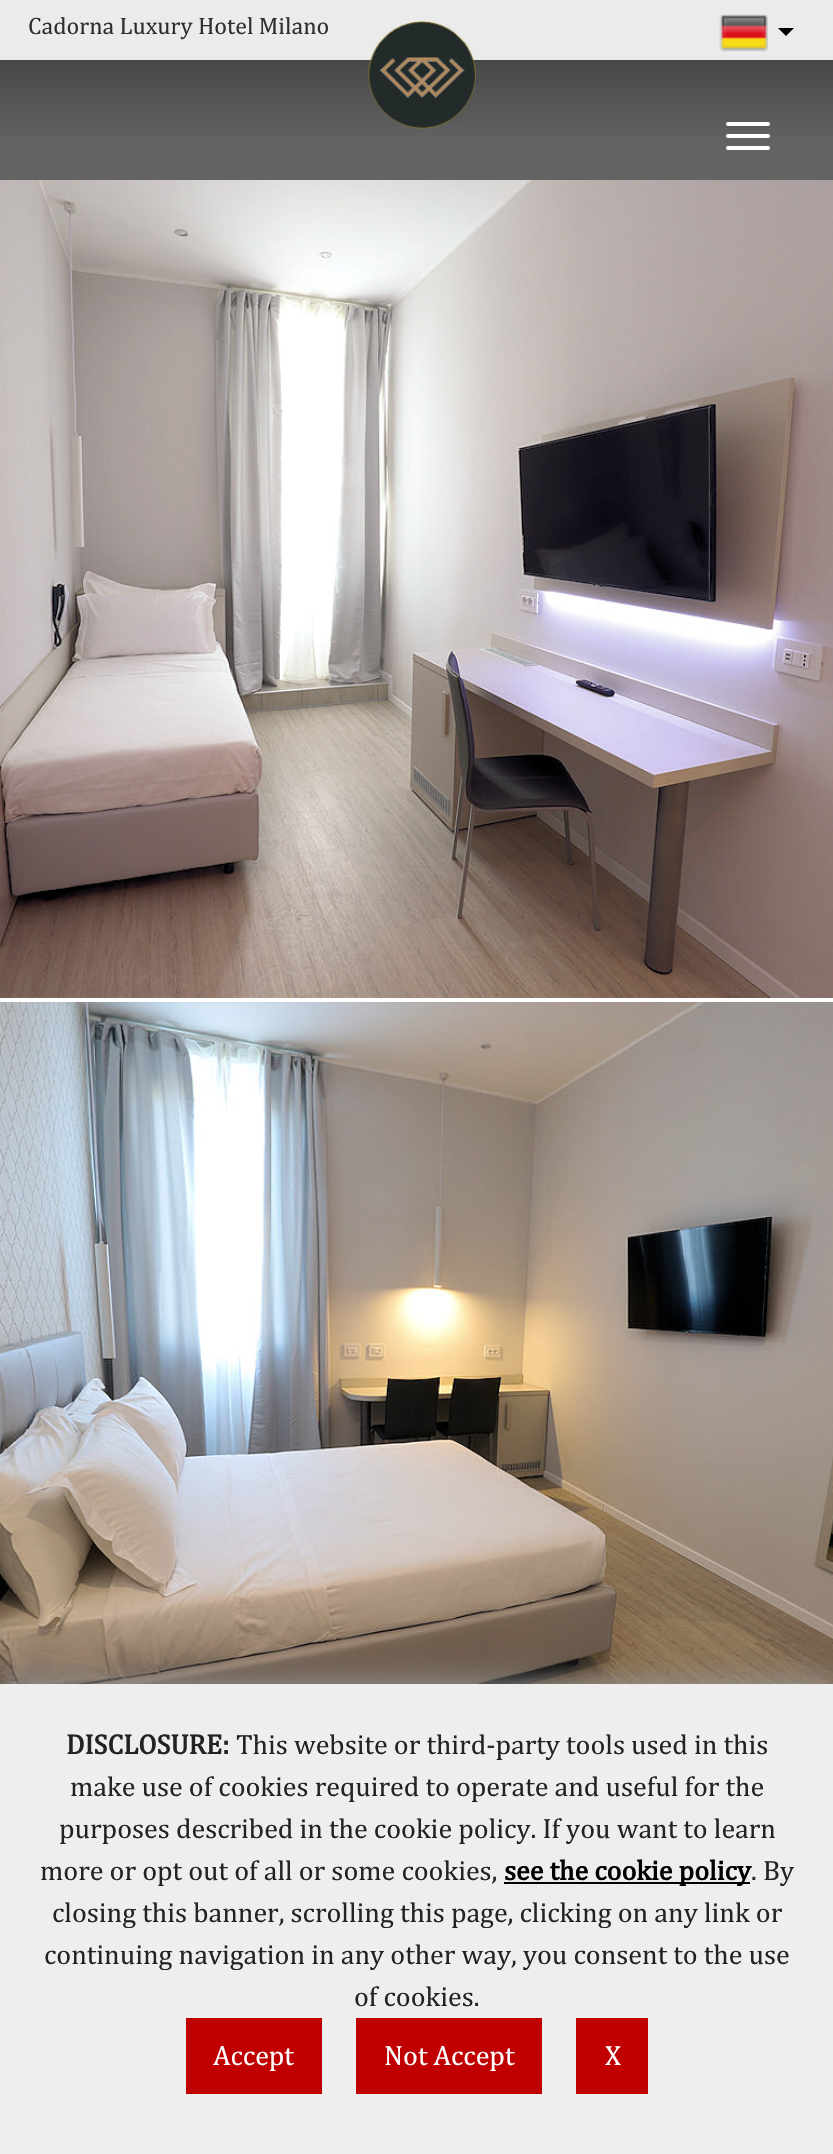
void draw(SkCanvas* canvas) {
    SkPaint paint;
    paint.setAntiAlias(true);
    canvas->clear(0xFFFFFFFF);
    {
        const SkColor colors[] = {0xFF343434, 0xFF636363};
        const float stops[] = {0, 0.8f};
        const SkPoint ends[] = {{417, 0}, {417, 180}};
        paint.setShader(SkGradientShader::MakeLinear(ends, colors, stops, 2, SkTileMode::kClamp));
        paint.setAlpha(255);
    }
    canvas->drawRect(SkRect::MakeXYWH(0, 60, 833, 120), paint);
    paint.setShader(nullptr);
    paint.setColor(0xFFEBEBEB);
    canvas->drawRect(SkRect::MakeXYWH(0, 0, 833, 60), paint);
    SkFont font1(fontMgr->matchFamilyStyle("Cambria", SkFontStyle::Normal()), 24);
    font1.setSubpixel(true);
    paint.setColor(0xFF2F2F2F);
    canvas->drawString("Cadorna Luxury Hotel Milano", 28, 34, font1, paint);
    canvas->drawImageRect(SkImages::DeferredFromEncodedData(SkData::MakeFromFileName("img1.png")), SkRect::MakeXYWH(367, 21, 109, 108), SkSamplingOptions());
    canvas->drawImageRect(SkImages::DeferredFromEncodedData(SkData::MakeFromFileName("img2.png")), SkRect::MakeXYWH(719, 14, 49, 38), SkSamplingOptions());
    paint.setColor(0xFF000000);
    canvas->drawPath(SkPathBuilder().moveTo(778, 28).lineTo(794, 28).lineTo(786, 36).close().detach(), paint);
    paint.setColor(0xFFFFFFFF);
    canvas->drawRoundRect(SkRect::MakeXYWH(726, 122, 44, 4), 2, 2, paint);
    canvas->drawRoundRect(SkRect::MakeXYWH(726, 134, 44, 4), 2, 2, paint);
    canvas->drawRoundRect(SkRect::MakeXYWH(726, 146, 44, 4), 2, 2, paint);
    canvas->drawImageRect(SkImages::DeferredFromEncodedData(SkData::MakeFromFileName("img3.png")), SkRect::MakeXYWH(0, 180, 833, 818), SkSamplingOptions());
    canvas->drawImageRect(SkImages::DeferredFromEncodedData(SkData::MakeFromFileName("img4.png")), SkRect::MakeXYWH(0, 1002, 833, 682), SkSamplingOptions());
    paint.setColor(0xFF969696);
    paint.setMaskFilter(SkMaskFilter::MakeBlur(kNormal_SkBlurStyle, 15));
    canvas->drawRect(SkRect::MakeXYWH(-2, 1682, 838, 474), paint);
    paint.setMaskFilter(nullptr);
    paint.setColor(0xFFEEEEEE);
    canvas->drawRect(SkRect::MakeXYWH(0, 1684, 833, 470), paint);
    SkFont font2(fontMgr->matchFamilyStyle("Cambria", SkFontStyle::Bold()), 28);
    font2.setSubpixel(true);
    paint.setColor(0xFF232323);
    canvas->drawString("DISCLOSURE:", 66, 1754, font2, paint);
    SkFont font3(fontMgr->matchFamilyStyle("Cambria", SkFontStyle::Normal()), 28);
    font3.setSubpixel(true);
    canvas->drawString("This website or third-party tools used in this", 236, 1754, font3, paint);
    canvas->drawString("make use of cookies required to operate and useful for the", 70, 1796, font3, paint);
    canvas->drawString("purposes described in the cookie policy. If you want to learn", 59, 1838, font3, paint);
    canvas->drawString("more or opt out of all or some cookies,", 40, 1880, font3, paint);
    paint.setColor(0xFF000000);
    canvas->drawRect(SkRect::MakeXYWH(504, 1882, 246, 2), paint);
    canvas->drawString("see the cookie policy", 504, 1880, font2, paint);
    paint.setColor(0xFF232323);
    canvas->drawString(". By", 751, 1880, font3, paint);
    canvas->drawString("closing this banner, scrolling this page, clicking on any link or", 52, 1922, font3, paint);
    canvas->drawString("continuing navigation in any other way, you consent to the use", 44, 1964, font3, paint);
    canvas->drawString("of cookies.", 354, 2006, font3, paint);
    paint.setColor(0xFFC00000);
    canvas->drawRect(SkRect::MakeXYWH(186, 2018, 136, 76), paint);
    paint.setColor(0xFFFFFFFF);
    canvas->drawString("Accept", 213, 2065, font3, paint);
    paint.setColor(0xFFC00000);
    canvas->drawRect(SkRect::MakeXYWH(356, 2018, 186, 76), paint);
    paint.setColor(0xFFFFFFFF);
    canvas->drawString("Not Accept", 384, 2065, font3, paint);
    paint.setColor(0xFFC00000);
    canvas->drawRect(SkRect::MakeXYWH(576, 2018, 72, 76), paint);
    paint.setColor(0xFFFFFFFF);
    canvas->drawString("X", 605, 2065, font3, paint);
}
